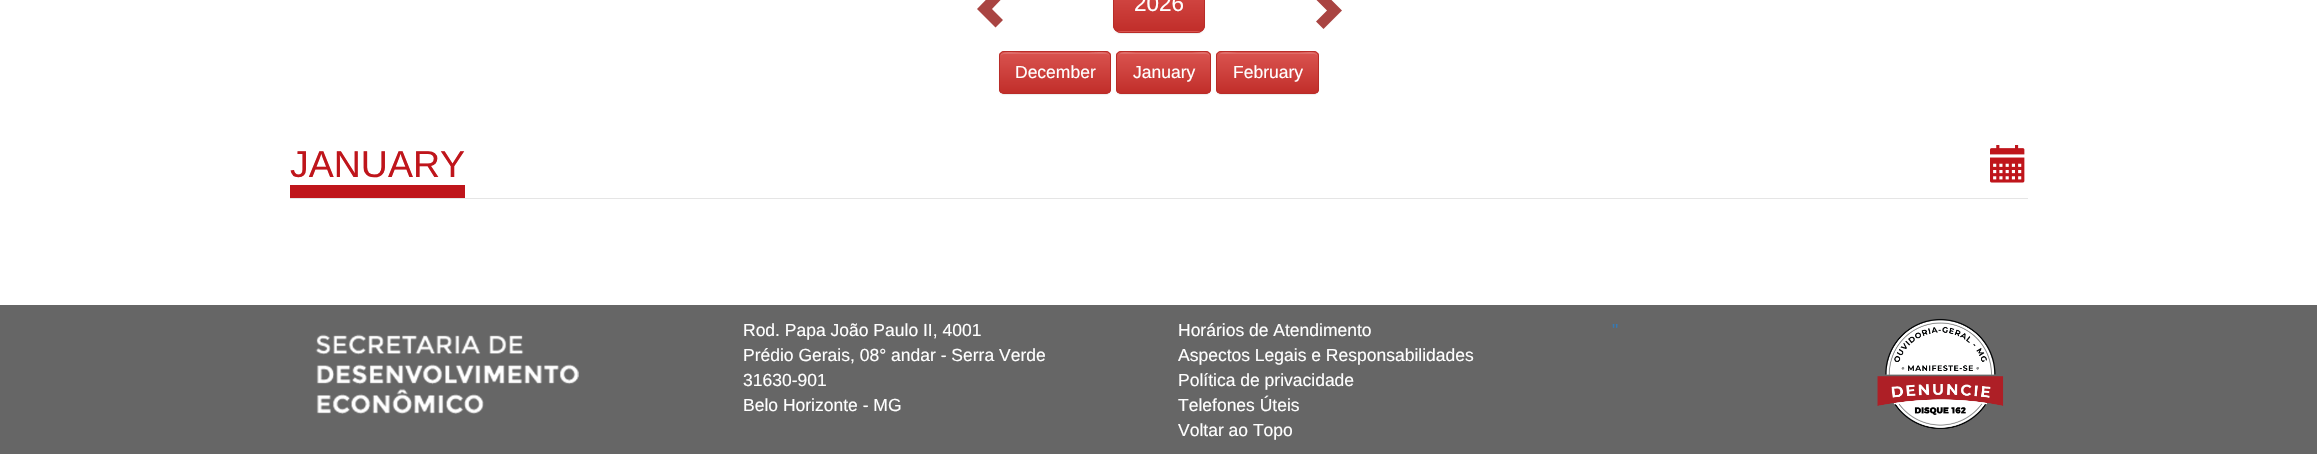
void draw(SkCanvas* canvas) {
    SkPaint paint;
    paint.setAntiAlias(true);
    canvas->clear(0xFFFFFFFF);
    paint.setColor(0xFFA94442);
    canvas->drawPath(SkPathBuilder().moveTo(977, 9).lineTo(995.5f, 27.5f).lineTo(1003, 20).lineTo(992, 9).lineTo(1003, -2.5f).lineTo(995.5f, -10).close().detach(), paint);
    paint.setColor(0x12000000);
    paint.setMaskFilter(SkMaskFilter::MakeBlur(kNormal_SkBlurStyle, 0.5f));
    canvas->drawRoundRect(SkRect::MakeXYWH(1113, -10, 92, 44), 8, 8, paint);
    paint.setMaskFilter(nullptr);
    paint.setColor(0xFFD9534F);
    canvas->drawRoundRect(SkRect::MakeXYWH(1113, -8, 92, 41), 8, 8, paint);
    canvas->save();
    canvas->clipPath(SkPathBuilder().moveTo(1121, -24).lineTo(1197, -24).cubicTo(1201.5f, -24, 1205, -20.5f, 1205, -16).lineTo(1205, 25).cubicTo(1205, 29.5f, 1201.5f, 33, 1197, 33).lineTo(1121, 33).cubicTo(1116.5f, 33, 1113, 29.5f, 1113, 25).lineTo(1113, -16).cubicTo(1113, -20.5f, 1116.5f, -24, 1121, -24).close().detach(), true);
    {
        const SkColor colors[] = {0xFFD9534F, 0xFFC12E2A};
        const float stops[] = {0, 1};
        const SkPoint ends[] = {{1159, -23}, {1159, 31}};
        paint.setShader(SkGradientShader::MakeLinear(ends, colors, stops, 2, SkTileMode::kClamp));
        paint.setAlpha(255);
    }
    canvas->drawRect(SkRect::MakeXYWH(1113, 0, 92, 31), paint);
    canvas->restore();
    paint.setStyle(SkPaint::kStroke_Style);
    paint.setStrokeWidth(1);
    paint.setShader(nullptr);
    paint.setColor(0xFFB92C28);
    canvas->drawRoundRect(SkRect::MakeXYWH(1113.5f, -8.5f, 91, 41), 7.5f, 7.5f, paint);
    SkFont font1(fontMgr->matchFamilyStyle("Liberation Sans", SkFontStyle::Normal()), 22.5f);
    font1.setSubpixel(true);
    paint.setStyle(SkPaint::kFill_Style);
    paint.setColor(0xFFFFFFFF);
    canvas->drawString("2026", 1134, 11, font1, paint);
    paint.setColor(0xFFA94442);
    canvas->drawPath(SkPathBuilder().moveTo(1316, 21.5f).lineTo(1327, 10.5f).lineTo(1316, -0.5f).lineTo(1323.5f, -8).lineTo(1342, 10.5f).lineTo(1323.5f, 29).close().detach(), paint);
    paint.setColor(0x12000000);
    paint.setMaskFilter(SkMaskFilter::MakeBlur(kNormal_SkBlurStyle, 0.5f));
    canvas->drawRoundRect(SkRect::MakeXYWH(999, 53, 112, 42), 5, 5, paint);
    paint.setMaskFilter(nullptr);
    paint.setColor(0xFFD9534F);
    canvas->drawRoundRect(SkRect::MakeXYWH(999, 51, 112, 43), 5, 5, paint);
    canvas->save();
    canvas->clipPath(SkPathBuilder().moveTo(1004, 51).lineTo(1106, 51).cubicTo(1109, 51, 1111, 53, 1111, 56).lineTo(1111, 89).cubicTo(1111, 92, 1109, 94, 1106, 94).lineTo(1004, 94).cubicTo(1001, 94, 999, 92, 999, 89).lineTo(999, 56).cubicTo(999, 53, 1001, 51, 1004, 51).close().detach(), true);
    {
        const SkColor colors[] = {0xFFD9534F, 0xFFC12E2A};
        const float stops[] = {0, 1};
        const SkPoint ends[] = {{1055, 52}, {1055, 93}};
        paint.setShader(SkGradientShader::MakeLinear(ends, colors, stops, 2, SkTileMode::kClamp));
        paint.setAlpha(255);
    }
    canvas->drawRect(SkRect::MakeXYWH(999, 53, 112, 40), paint);
    canvas->restore();
    paint.setShader(nullptr);
    paint.setColor(0xFFDE6C69);
    canvas->drawPath(SkPathBuilder().moveTo(1004, 54).lineTo(1106, 54).cubicTo(1108, 54, 1110, 55, 1110, 58).cubicTo(1110, 49, 1093, 53, 1089, 53).lineTo(1021, 53).cubicTo(1017, 53, 1000, 49, 1000, 58).cubicTo(1000, 55, 1002, 54, 1004, 54).close().detach(), paint);
    paint.setStyle(SkPaint::kStroke_Style);
    paint.setColor(0xFFB92C28);
    canvas->drawRoundRect(SkRect::MakeXYWH(999.5f, 51.5f, 111, 42), 4.5f, 4.5f, paint);
    SkFont font2(fontMgr->matchFamilyStyle("Liberation Sans", SkFontStyle::Normal()), 17.5f);
    font2.setSubpixel(true);
    paint.setStyle(SkPaint::kFill_Style);
    paint.setColor(0xFFFFFFFF);
    canvas->drawString("December", 1015, 78, font2, paint);
    paint.setColor(0x12000000);
    paint.setMaskFilter(SkMaskFilter::MakeBlur(kNormal_SkBlurStyle, 0.5f));
    canvas->drawRoundRect(SkRect::MakeXYWH(1116, 53, 95, 42), 5, 5, paint);
    paint.setMaskFilter(nullptr);
    paint.setColor(0xFFD9534F);
    canvas->drawRoundRect(SkRect::MakeXYWH(1116, 51, 95, 43), 5, 5, paint);
    canvas->save();
    canvas->clipPath(SkPathBuilder().moveTo(1121, 51).lineTo(1206, 51).cubicTo(1209, 51, 1211, 53, 1211, 56).lineTo(1211, 89).cubicTo(1211, 92, 1209, 94, 1206, 94).lineTo(1121, 94).cubicTo(1118, 94, 1116, 92, 1116, 89).lineTo(1116, 56).cubicTo(1116, 53, 1118, 51, 1121, 51).close().detach(), true);
    {
        const SkColor colors[] = {0xFFD9534F, 0xFFC12E2A};
        const float stops[] = {0, 1};
        const SkPoint ends[] = {{1164, 53}, {1164, 93}};
        paint.setShader(SkGradientShader::MakeLinear(ends, colors, stops, 2, SkTileMode::kClamp));
        paint.setAlpha(255);
    }
    canvas->drawRect(SkRect::MakeXYWH(1116, 53, 95, 40), paint);
    canvas->restore();
    paint.setShader(nullptr);
    paint.setColor(0xFFDF6D69);
    canvas->drawPath(SkPathBuilder().moveTo(1121, 54).lineTo(1206, 54).cubicTo(1208, 54, 1210, 55, 1210, 58).cubicTo(1210, 49, 1197, 53, 1192, 53).lineTo(1136, 53).cubicTo(1131, 53, 1118, 49, 1118, 58).cubicTo(1118, 55, 1119, 54, 1121, 54).close().detach(), paint);
    paint.setStyle(SkPaint::kStroke_Style);
    paint.setColor(0xFFB92C28);
    canvas->drawRoundRect(SkRect::MakeXYWH(1116.5f, 51.5f, 94, 42), 4.5f, 4.5f, paint);
    paint.setStyle(SkPaint::kFill_Style);
    paint.setColor(0xFFFFFFFF);
    canvas->drawString("January", 1133, 78, font2, paint);
    paint.setColor(0x12000000);
    paint.setMaskFilter(SkMaskFilter::MakeBlur(kNormal_SkBlurStyle, 0.5f));
    canvas->drawRoundRect(SkRect::MakeXYWH(1216, 53, 103, 42), 5, 5, paint);
    paint.setMaskFilter(nullptr);
    paint.setColor(0xFFD9534F);
    canvas->drawRoundRect(SkRect::MakeXYWH(1216, 51, 103, 43), 5, 5, paint);
    canvas->save();
    canvas->clipPath(SkPathBuilder().moveTo(1221, 51).lineTo(1314, 51).cubicTo(1317, 51, 1319, 53, 1319, 56).lineTo(1319, 89).cubicTo(1319, 92, 1317, 94, 1314, 94).lineTo(1221, 94).cubicTo(1218, 94, 1216, 92, 1216, 89).lineTo(1216, 56).cubicTo(1216, 53, 1218, 51, 1221, 51).close().detach(), true);
    {
        const SkColor colors[] = {0xFFD9534F, 0xFFC12E2A};
        const float stops[] = {0, 1};
        const SkPoint ends[] = {{1268, 53}, {1268, 93}};
        paint.setShader(SkGradientShader::MakeLinear(ends, colors, stops, 2, SkTileMode::kClamp));
        paint.setAlpha(255);
    }
    canvas->drawRect(SkRect::MakeXYWH(1216, 53, 103, 40), paint);
    canvas->restore();
    paint.setShader(nullptr);
    paint.setColor(0xFFDF6D69);
    canvas->drawPath(SkPathBuilder().moveTo(1221, 54).lineTo(1314, 54).cubicTo(1316, 54, 1318, 55, 1318, 58).cubicTo(1318, 49, 1303, 53, 1299, 53).lineTo(1237, 53).cubicTo(1233, 53, 1218, 49, 1218, 58).cubicTo(1218, 55, 1219, 54, 1221, 54).close().detach(), paint);
    paint.setStyle(SkPaint::kStroke_Style);
    paint.setColor(0xFFB92C28);
    canvas->drawRoundRect(SkRect::MakeXYWH(1216.5f, 51.5f, 102, 42), 4.5f, 4.5f, paint);
    paint.setStyle(SkPaint::kFill_Style);
    paint.setColor(0xFFFFFFFF);
    canvas->drawString("February", 1233, 78, font2, paint);
    paint.setColor(0xFFE5E5E5);
    canvas->drawRect(SkRect::MakeXYWH(290, 198, 1738, 1), paint);
    SkFont font3(fontMgr->matchFamilyStyle("Liberation Sans", SkFontStyle::Normal()), 37.5f);
    font3.setSubpixel(true);
    paint.setColor(0xFFBF151B);
    canvas->drawString("JANUARY", 290, 177, font3, paint);
    canvas->drawRect(SkRect::MakeXYWH(290, 185, 175, 13), paint);
    canvas->drawImageRect(SkImages::DeferredFromEncodedData(SkData::MakeFromFileName("img1.png")), SkRect::MakeXYWH(1990, 145, 35, 38), SkSamplingOptions());
    paint.setColor(0xFF666666);
    canvas->drawRect(SkRect::MakeXYWH(0, 305, 2317, 149), paint);
    paint.setColor(0xFFFFFFFF);
    canvas->drawString("Rod. Papa João Paulo II, 4001", 743, 336, font2, paint);
    canvas->drawString("Prédio Gerais, 08° andar - Serra Verde", 743, 361, font2, paint);
    canvas->drawString("31630-901", 743, 386, font2, paint);
    canvas->drawString("Belo Horizonte - MG", 743, 411, font2, paint);
    canvas->drawString("Horários de Atendimento", 1178, 336, font2, paint);
    canvas->drawString("Aspectos Legais e Responsabilidades", 1178, 361, font2, paint);
    canvas->drawString("Política de privacidade", 1178, 386, font2, paint);
    canvas->drawString("Telefones Úteis", 1178, 411, font2, paint);
    canvas->drawString("Voltar ao Topo", 1178, 436, font2, paint);
    paint.setColor(0xFF337AB7);
    canvas->drawString("\"", 1612, 336, font2, paint);
    canvas->drawImageRect(SkImages::DeferredFromEncodedData(SkData::MakeFromFileName("img2.png")), SkRect::MakeXYWH(1877, 318, 127, 111), SkSamplingOptions());
    canvas->drawImageRect(SkImages::DeferredFromEncodedData(SkData::MakeFromFileName("img3.png")), SkRect::MakeXYWH(315, 334, 264, 80), SkSamplingOptions());
}
